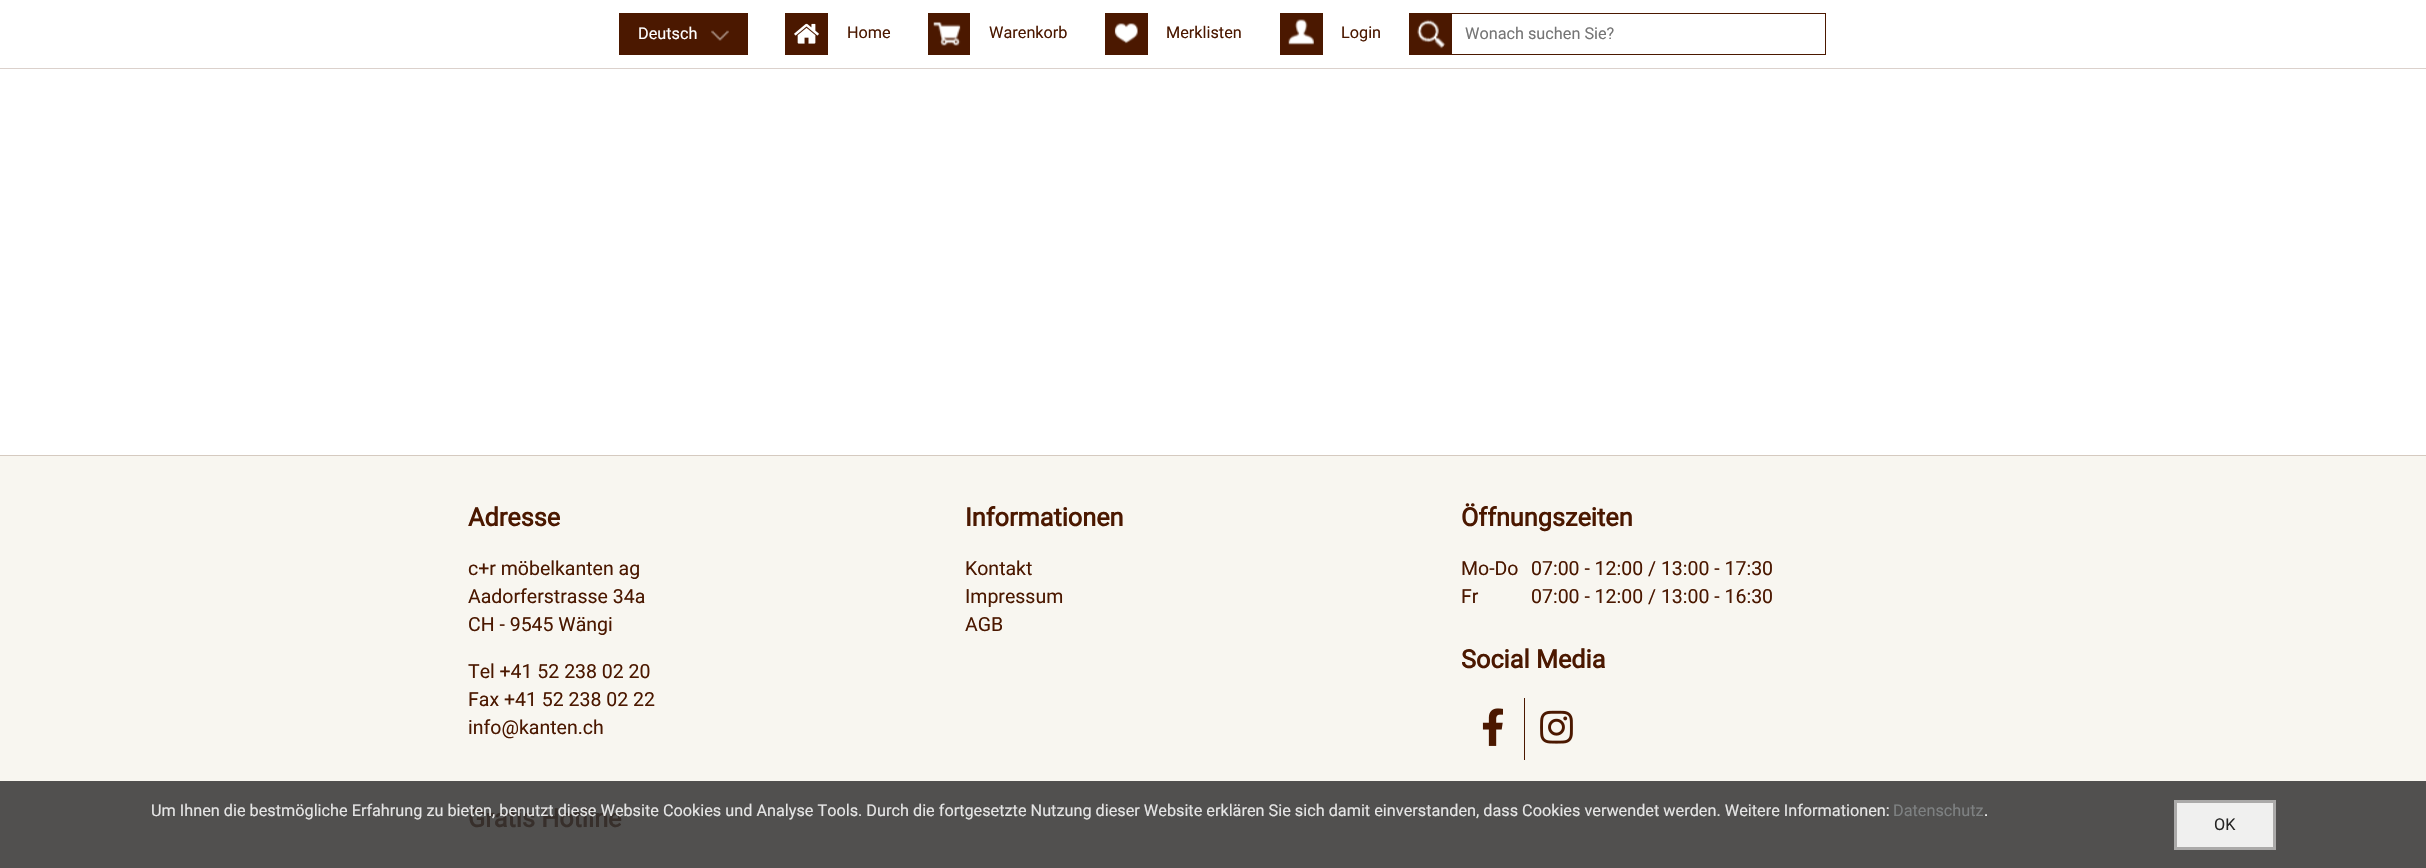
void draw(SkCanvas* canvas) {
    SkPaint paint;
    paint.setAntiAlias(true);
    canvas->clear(0xFFFFFFFF);
    paint.setColor(0xFFDBD1CC);
    canvas->drawRect(SkRect::MakeXYWH(0, 68, 2426, 1), paint);
    paint.setColor(0xFF4B1800);
    canvas->drawRect(SkRect::MakeXYWH(619, 13, 129, 42), paint);
    SkFont font1(fontMgr->matchFamilyStyle("Roboto", SkFontStyle::Normal()), 16.25f);
    font1.setSubpixel(true);
    paint.setColor(0xFFFFFFFF);
    canvas->drawString("Deutsch", 638, 39, font1, paint);
    canvas->drawImageRect(SkImages::DeferredFromEncodedData(SkData::MakeFromFileName("img1.png")), SkRect::MakeXYWH(711, 30, 18, 11), SkSamplingOptions());
    paint.setColor(0xFF4B1800);
    canvas->drawRect(SkRect::MakeXYWH(785, 13, 43, 42), paint);
    canvas->drawImageRect(SkImages::DeferredFromEncodedData(SkData::MakeFromFileName("img2.png")), SkRect::MakeXYWH(794, 23, 25, 21), SkSamplingOptions());
    canvas->drawString("Home", 847, 38, font1, paint);
    canvas->drawRect(SkRect::MakeXYWH(928, 13, 42, 42), paint);
    canvas->drawImageRect(SkImages::DeferredFromEncodedData(SkData::MakeFromFileName("img3.png")), SkRect::MakeXYWH(933, 21, 28, 25), SkSamplingOptions());
    canvas->drawString("Warenkorb", 989, 38, font1, paint);
    canvas->drawRect(SkRect::MakeXYWH(1105, 13, 43, 42), paint);
    canvas->drawImageRect(SkImages::DeferredFromEncodedData(SkData::MakeFromFileName("img4.png")), SkRect::MakeXYWH(1114, 23, 24, 21), SkSamplingOptions());
    canvas->drawString("Merklisten", 1166, 38, font1, paint);
    canvas->drawRect(SkRect::MakeXYWH(1280, 13, 43, 42), paint);
    canvas->drawImageRect(SkImages::DeferredFromEncodedData(SkData::MakeFromFileName("img5.png")), SkRect::MakeXYWH(1288, 19, 26, 26), SkSamplingOptions());
    canvas->drawString("Login", 1341, 38, font1, paint);
    canvas->drawRect(SkRect::MakeXYWH(1409, 13, 42, 42), paint);
    canvas->drawImageRect(SkImages::DeferredFromEncodedData(SkData::MakeFromFileName("img6.png")), SkRect::MakeXYWH(1417, 19, 29, 30), SkSamplingOptions());
    paint.setStyle(SkPaint::kStroke_Style);
    paint.setStrokeWidth(1);
    canvas->drawRect(SkRect::MakeXYWH(1451.5f, 13.5f, 374, 41), paint);
    paint.setStyle(SkPaint::kFill_Style);
    paint.setColor(0xFF757575);
    canvas->drawString("Wonach suchen Sie?", 1465, 39, font1, paint);
    paint.setColor(0xFFF8F6F0);
    canvas->drawRect(SkRect::MakeXYWH(0, 456, 2426, 325), paint);
    paint.setColor(0xFF51504F);
    canvas->drawRect(SkRect::MakeXYWH(0, 781, 2426, 87), paint);
    paint.setColor(0xFFD5CAC0);
    canvas->drawRect(SkRect::MakeXYWH(0, 455, 2426, 1), paint);
    SkFont font2(fontMgr->matchFamilyStyle("Roboto", SkFontStyle::Bold()), 25.25f);
    font2.setSubpixel(true);
    paint.setColor(0xFF4B1800);
    canvas->drawString("Adresse", 468, 526, font2, paint);
    SkFont font3(fontMgr->matchFamilyStyle("Roboto", SkFontStyle::Normal()), 19.5f);
    font3.setSubpixel(true);
    canvas->drawString("c+r möbelkanten ag", 468, 575, font3, paint);
    canvas->drawString("Aadorferstrasse 34a", 468, 603, font3, paint);
    canvas->drawString("CH - 9545 Wängi", 468, 631, font3, paint);
    canvas->drawString("Tel +41 52 238 02 20", 468, 678, font3, paint);
    canvas->drawString("Fax +41 52 238 02 22", 468, 706, font3, paint);
    canvas->drawString("info@kanten.ch", 468, 734, font3, paint);
    paint.setColor(0xFF372F2B);
    canvas->drawString("Gratis Hotline", 468, 827, font2, paint);
    paint.setColor(0xFF4B1800);
    canvas->drawString("Informationen", 965, 526, font2, paint);
    canvas->drawString("Kontakt", 965, 575, font3, paint);
    canvas->drawString("Impressum", 965, 603, font3, paint);
    canvas->drawString("AGB", 965, 631, font3, paint);
    canvas->drawString("Öffnungszeiten", 1461, 526, font2, paint);
    canvas->drawString("Mo-Do", 1461, 575, font3, paint);
    canvas->drawString("07:00 - 12:00 / 13:00 - 17:30", 1531, 575, font3, paint);
    canvas->drawString("Fr", 1461, 603, font3, paint);
    canvas->drawString("07:00 - 12:00 / 13:00 - 16:30", 1531, 603, font3, paint);
    canvas->drawString("Social Media", 1461, 668, font2, paint);
    canvas->drawImageRect(SkImages::DeferredFromEncodedData(SkData::MakeFromFileName("img7.png")), SkRect::MakeXYWH(1482, 708, 21, 38), SkSamplingOptions());
    canvas->drawRect(SkRect::MakeXYWH(1524, 698, 1, 62), paint);
    canvas->drawImageRect(SkImages::DeferredFromEncodedData(SkData::MakeFromFileName("img8.png")), SkRect::MakeXYWH(1540, 710, 33, 34), SkSamplingOptions());
    paint.setColor(0xFFE5E5E5);
    canvas->drawString("Um Ihnen die bestmögliche Erfahrung zu bieten, benutzt diese Website Cookies und Analyse Tools. Durch die fortgesetzte Nutzung dieser Website erklären Sie sich damit einverstanden, dass Cookies verwendet werden. Weitere Informationen:", 151, 816, font1, paint);
    paint.setColor(0xFF7E8182);
    canvas->drawString("Datenschutz", 1893, 816, font1, paint);
    paint.setColor(0xFFFFFFFF);
    canvas->drawString(".", 1984, 816, font1, paint);
    paint.setColor(0xFFF0F0EF);
    canvas->drawRect(SkRect::MakeXYWH(2175.5f, 801.5f, 99, 47), paint);
    paint.setStyle(SkPaint::kStroke_Style);
    paint.setStrokeWidth(3);
    paint.setColor(0xFFABAAA9);
    canvas->drawRect(SkRect::MakeXYWH(2175.5f, 801.5f, 99, 47), paint);
    paint.setStyle(SkPaint::kFill_Style);
    paint.setColor(0xFF252524);
    canvas->drawString("OK", 2214, 830, font1, paint);
}
